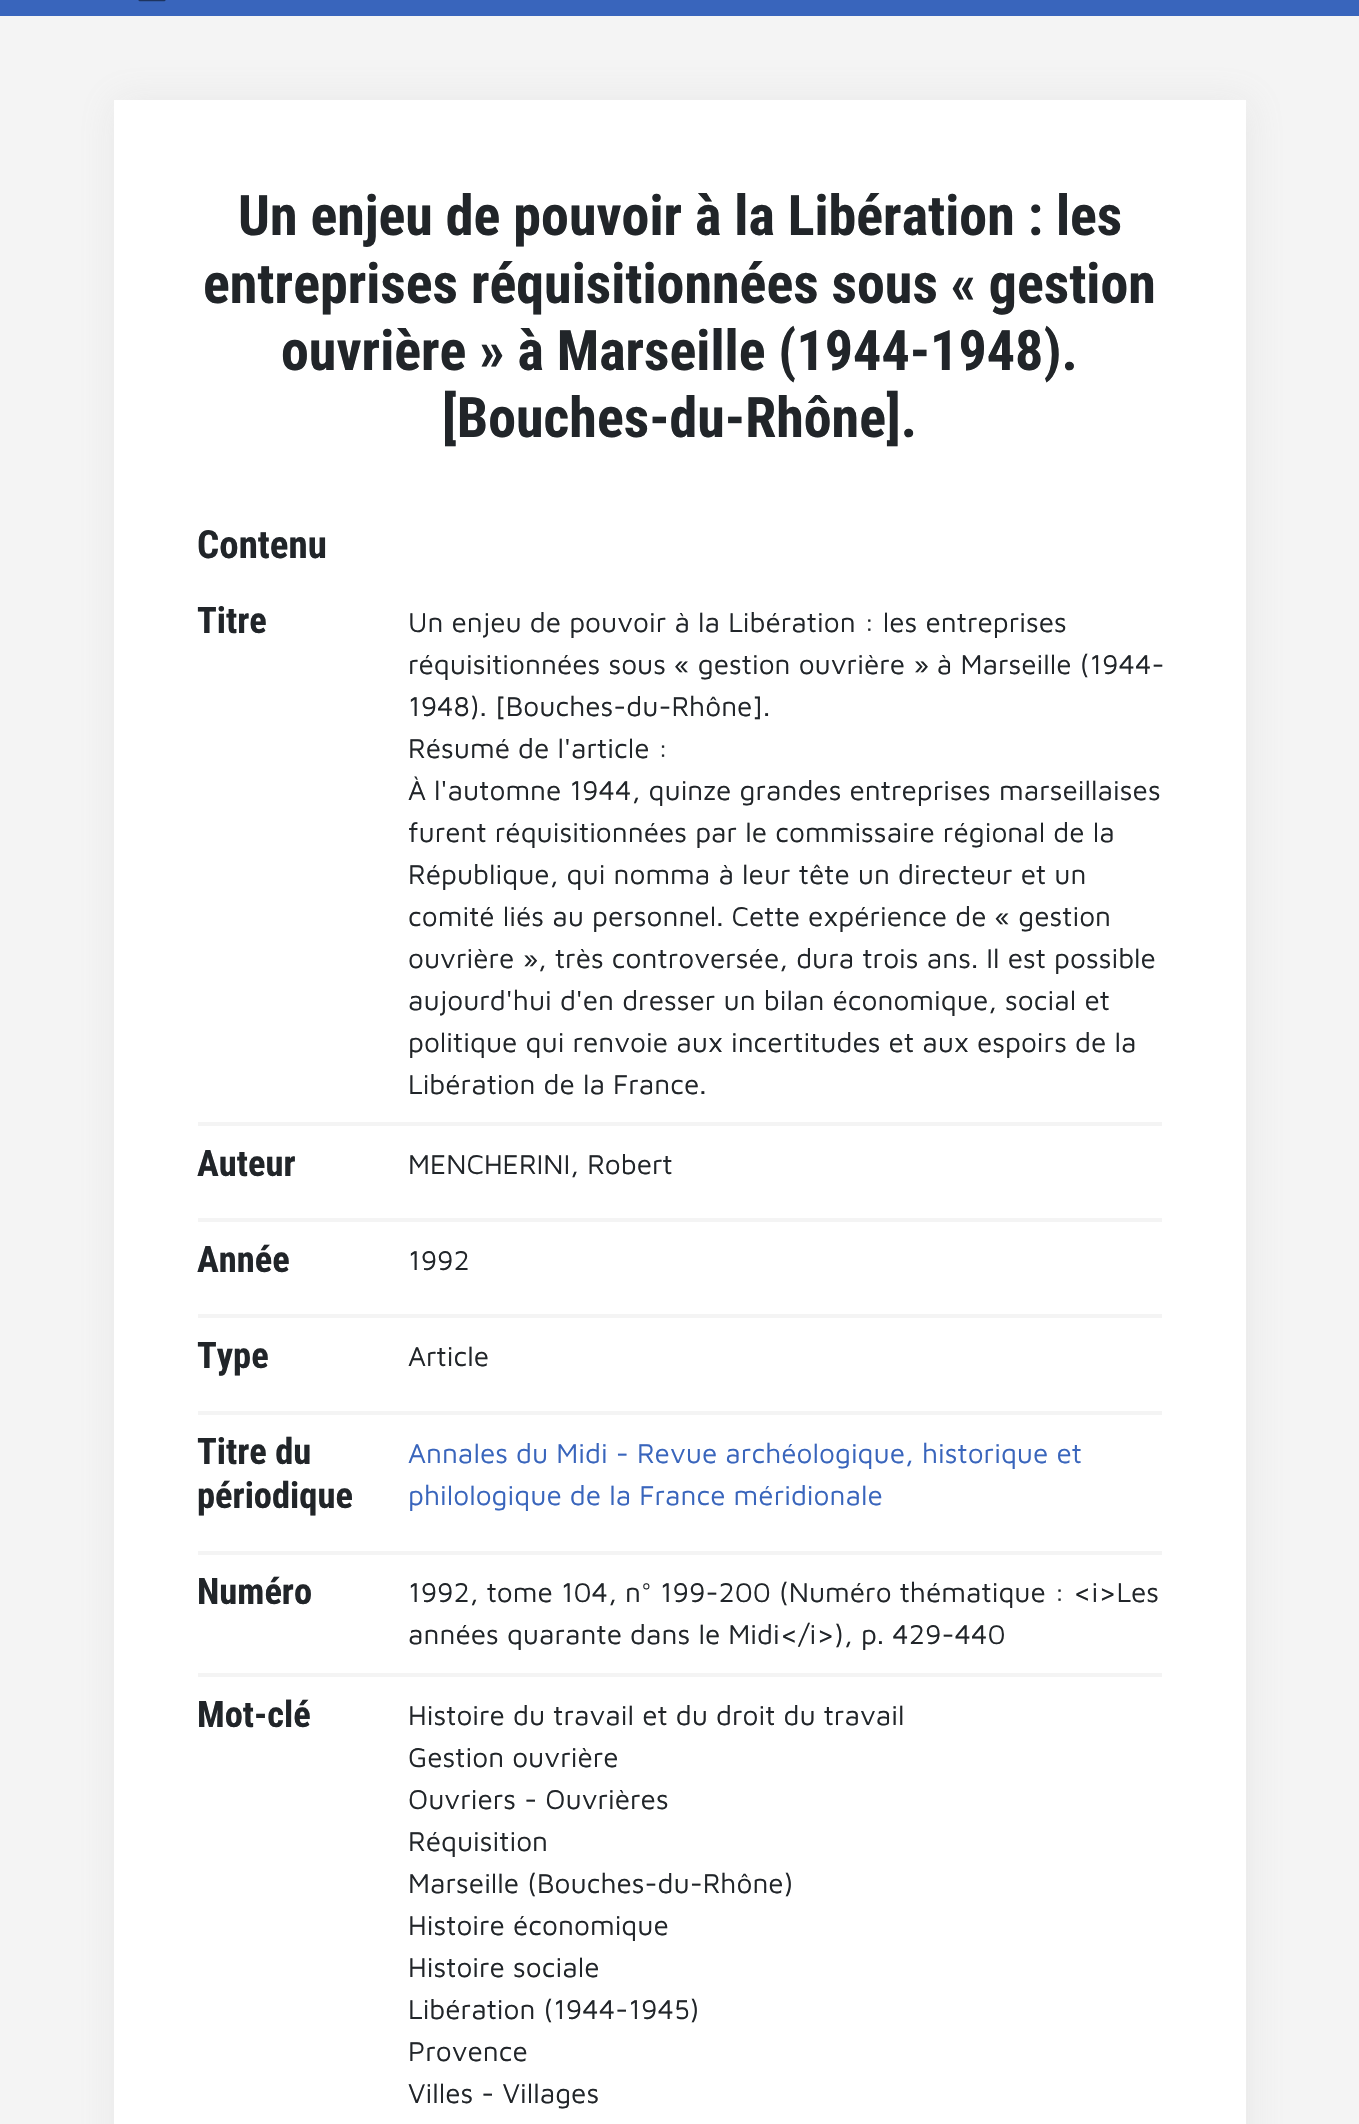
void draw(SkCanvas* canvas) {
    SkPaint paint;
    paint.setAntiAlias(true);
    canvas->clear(0xFFF4F4F4);
    paint.setColor(0xFF3965BC);
    canvas->drawRect(SkRect::MakeXYWH(0, 0, 1359, 16), paint);
    paint.setStyle(SkPaint::kStroke_Style);
    paint.setStrokeWidth(2.3f);
    paint.setStrokeCap(SkPaint::kRound_Cap);
    paint.setColor(0xFF1D335E);
    canvas->drawPath(SkPathBuilder().moveTo(139.5f, -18.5f).lineTo(164.5f, -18.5f).moveTo(139.5f, -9).lineTo(164.5f, -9).moveTo(139.5f, 0).lineTo(164.5f, 0).detach(), paint);
    paint.setStyle(SkPaint::kFill_Style);
    paint.setColor(0x2BA2A2A2);
    paint.setMaskFilter(SkMaskFilter::MakeBlur(kNormal_SkBlurStyle, 17.5f));
    canvas->drawRect(SkRect::MakeXYWH(116, 102, 1132, 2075), paint);
    paint.setMaskFilter(nullptr);
    paint.setColor(0xFFFFFFFF);
    canvas->drawRect(SkRect::MakeXYWH(114, 100, 1132, 2024), paint);
    SkFont font1(fontMgr->matchFamilyStyle("Roboto Condensed", SkFontStyle::Bold()), 56);
    font1.setSubpixel(true);
    paint.setColor(0xFF212529);
    canvas->drawString("Un enjeu de pouvoir à la Libération : les", 238, 235, font1, paint);
    canvas->drawString("entreprises réquisitionnées sous « gestion", 203, 303, font1, paint);
    canvas->drawString("ouvrière » à Marseille (1944-1948).", 281, 370, font1, paint);
    canvas->drawString("[Bouches-du-Rhône].", 442, 437, font1, paint);
    SkFont font2(fontMgr->matchFamilyStyle("Roboto Condensed", SkFontStyle::Bold()), 39);
    font2.setSubpixel(true);
    canvas->drawString("Contenu", 197, 558, font2, paint);
    paint.setColor(0xFFF4F4F4);
    canvas->drawRect(SkRect::MakeXYWH(198, 1122, 964, 4), paint);
    SkFont font3(fontMgr->matchFamilyStyle("Roboto Condensed", SkFontStyle::Bold()), 36.5f);
    font3.setSubpixel(true);
    paint.setColor(0xFF212529);
    canvas->drawString("Titre", 197, 633, font3, paint);
    SkFont font4(fontMgr->matchFamilyStyle("Maven Pro", SkFontStyle::Normal()), 28);
    font4.setSubpixel(true);
    canvas->drawString("Un enjeu de pouvoir à la Libération : les entreprises", 408, 632, font4, paint);
    canvas->drawString("réquisitionnées sous « gestion ouvrière » à Marseille (1944-", 408, 674, font4, paint);
    canvas->drawString("1948). [Bouches-du-Rhône].", 408, 716, font4, paint);
    canvas->drawString("Résumé de l'article :", 408, 758, font4, paint);
    canvas->drawString("À l'automne 1944, quinze grandes entreprises marseillaises", 408, 800, font4, paint);
    canvas->drawString("furent réquisitionnées par le commissaire régional de la", 408, 842, font4, paint);
    canvas->drawString("République, qui nomma à leur tête un directeur et un", 408, 884, font4, paint);
    canvas->drawString("comité liés au personnel. Cette expérience de « gestion", 408, 926, font4, paint);
    canvas->drawString("ouvrière », très controversée, dura trois ans. Il est possible", 408, 968, font4, paint);
    canvas->drawString("aujourd'hui d'en dresser un bilan économique, social et", 408, 1010, font4, paint);
    canvas->drawString("politique qui renvoie aux incertitudes et aux espoirs de la", 408, 1052, font4, paint);
    canvas->drawString("Libération de la France.", 408, 1094, font4, paint);
    paint.setColor(0xFFF4F4F4);
    canvas->drawRect(SkRect::MakeXYWH(198, 1218, 964, 4), paint);
    paint.setColor(0xFF212529);
    canvas->drawString("Auteur", 197, 1176, font3, paint);
    canvas->drawString("MENCHERINI, Robert", 408, 1174, font4, paint);
    paint.setColor(0xFFF4F4F4);
    canvas->drawRect(SkRect::MakeXYWH(198, 1314, 964, 4), paint);
    paint.setColor(0xFF212529);
    canvas->drawString("Année", 197, 1272, font3, paint);
    canvas->drawString("1992", 408, 1270, font4, paint);
    paint.setColor(0xFFF4F4F4);
    canvas->drawRect(SkRect::MakeXYWH(198, 1411, 964, 4), paint);
    paint.setColor(0xFF212529);
    canvas->drawString("Type", 197, 1368, font3, paint);
    canvas->drawString("Article", 408, 1366, font4, paint);
    paint.setColor(0xFFF4F4F4);
    canvas->drawRect(SkRect::MakeXYWH(198, 1551, 964, 4), paint);
    paint.setColor(0xFF212529);
    canvas->drawString("Titre du", 197, 1464, font3, paint);
    canvas->drawString("périodique", 197, 1508, font3, paint);
    paint.setColor(0xFF3965BC);
    canvas->drawString("Annales du Midi - Revue archéologique, historique et", 408, 1463, font4, paint);
    canvas->drawString("philologique de la France méridionale", 408, 1505, font4, paint);
    paint.setColor(0xFFF4F4F4);
    canvas->drawRect(SkRect::MakeXYWH(198, 1673, 964, 4), paint);
    paint.setColor(0xFF212529);
    canvas->drawString("Numéro", 197, 1604, font3, paint);
    canvas->drawString("1992, tome 104, n° 199-200 (Numéro thématique : <i>Les", 408, 1602, font4, paint);
    canvas->drawString("années quarante dans le Midi</i>), p. 429-440", 408, 1644, font4, paint);
    canvas->drawString("Mot-clé", 197, 1727, font3, paint);
    canvas->drawString("Histoire du travail et du droit du travail", 408, 1725, font4, paint);
    canvas->drawString("Gestion ouvrière", 408, 1767, font4, paint);
    canvas->drawString("Ouvriers - Ouvrières", 408, 1809, font4, paint);
    canvas->drawString("Réquisition", 408, 1851, font4, paint);
    canvas->drawString("Marseille (Bouches-du-Rhône)", 408, 1893, font4, paint);
    canvas->drawString("Histoire économique", 408, 1935, font4, paint);
    canvas->drawString("Histoire sociale", 408, 1977, font4, paint);
    canvas->drawString("Libération (1944-1945)", 408, 2019, font4, paint);
    canvas->drawString("Provence", 408, 2061, font4, paint);
    canvas->drawString("Villes - Villages", 408, 2103, font4, paint);
}
